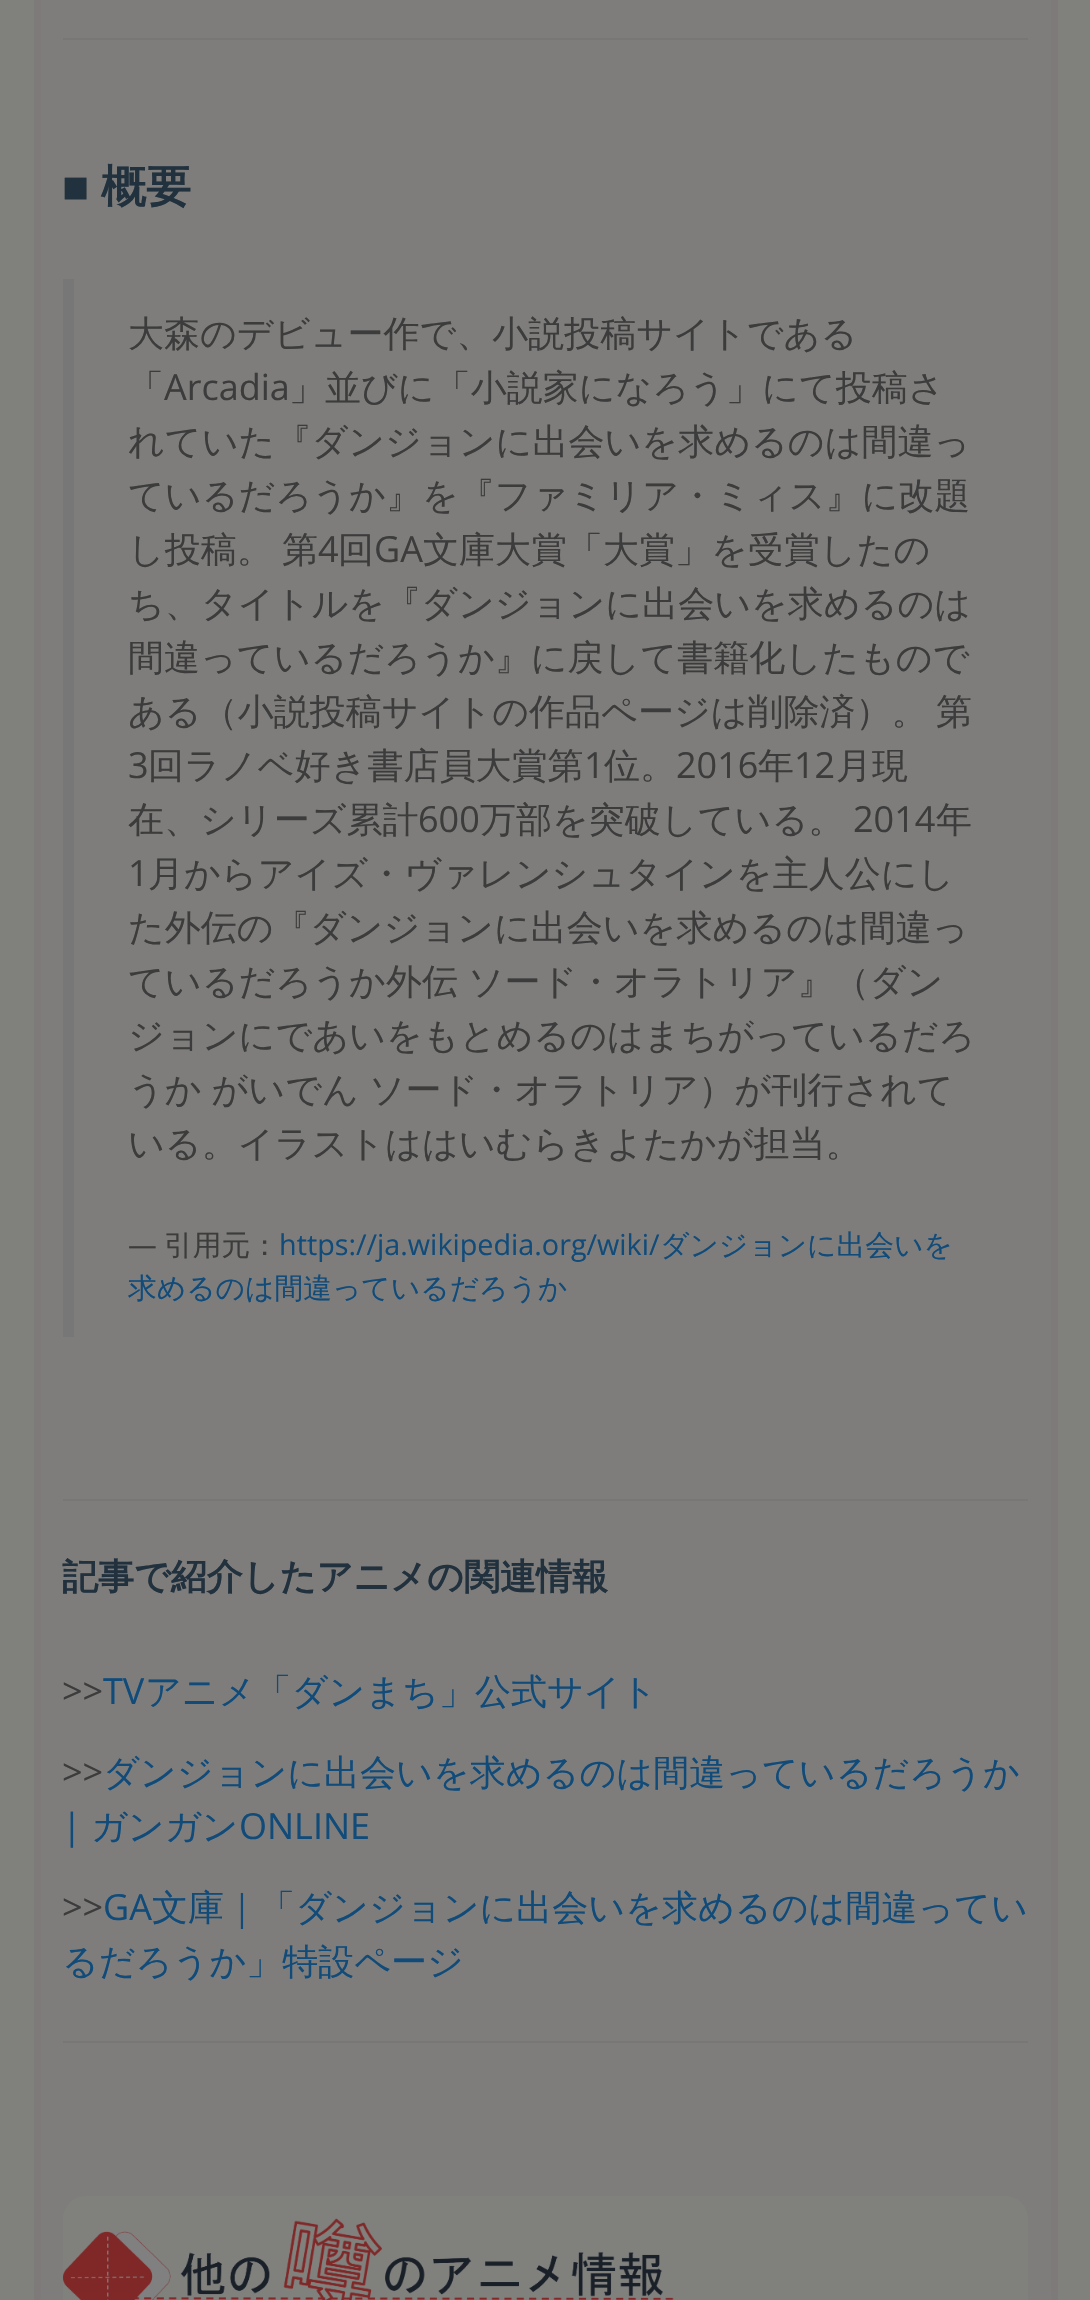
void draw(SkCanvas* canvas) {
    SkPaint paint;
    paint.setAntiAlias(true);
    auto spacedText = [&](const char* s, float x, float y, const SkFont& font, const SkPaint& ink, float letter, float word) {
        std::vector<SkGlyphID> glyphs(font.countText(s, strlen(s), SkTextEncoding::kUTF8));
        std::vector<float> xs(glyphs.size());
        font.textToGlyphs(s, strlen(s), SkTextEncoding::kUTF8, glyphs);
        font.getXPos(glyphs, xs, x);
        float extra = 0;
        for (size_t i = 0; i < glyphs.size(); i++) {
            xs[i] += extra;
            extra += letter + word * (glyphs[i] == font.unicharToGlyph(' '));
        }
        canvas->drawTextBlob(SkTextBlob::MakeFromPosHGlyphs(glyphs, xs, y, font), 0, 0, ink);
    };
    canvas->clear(0xFF80807D);
    paint.setColor(0xFF7E7D7B);
    canvas->drawRect(SkRect::MakeXYWH(37.5f, -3.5f, 1017, 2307), paint);
    paint.setStyle(SkPaint::kStroke_Style);
    paint.setStrokeWidth(7);
    paint.setColor(0xFF7F7A7A);
    canvas->drawRect(SkRect::MakeXYWH(37.5f, -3.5f, 1017, 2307), paint);
    paint.setStyle(SkPaint::kFill_Style);
    paint.setColor(0xFF777777);
    canvas->drawRect(SkRect::MakeXYWH(63, 38, 965, 2), paint);
    SkFont font1(fontMgr->matchFamilyStyle("Liberation Sans", SkFontStyle::Bold()), 45);
    font1.setSubpixel(true);
    paint.setColor(0xFF22313E);
    canvas->drawString("■", 62, 202, font1, paint);
    SkFont font2(fontMgr->matchFamilyStyle("WenQuanYi Zen Hei", SkFontStyle::Bold()), 45);
    font2.setSubpixel(true);
    canvas->drawString("概要", 101, 202, font2, paint);
    paint.setColor(0xFF777777);
    canvas->drawRect(SkRect::MakeXYWH(63, 279, 11, 1058), paint);
    SkFont font3(fontMgr->matchFamilyStyle("WenQuanYi Zen Hei", SkFontStyle(500, SkFontStyle::kNormal_Width, SkFontStyle::kUpright_Slant)), 36);
    font3.setSubpixel(true);
    paint.setColor(0xFF3C3C3C);
    canvas->drawString("大森のデビュー作で、小説投稿サイトである", 128, 346, font3, paint);
    canvas->drawString("「", 128, 400, font3, paint);
    SkFont font4(fontMgr->matchFamilyStyle("Open Sans", SkFontStyle::Normal()), 36);
    font4.setSubpixel(true);
    canvas->drawString("Arcadia", 164, 400, font4, paint);
    canvas->drawString("」並びに「小説家になろう」にて投稿さ", 289, 400, font3, paint);
    canvas->drawString("れていた『ダンジョンに出会いを求めるのは間違っ", 128, 454, font3, paint);
    canvas->drawString("ているだろうか』を『ファミリア・ミィス』に改題", 128, 508, font3, paint);
    canvas->drawString("し投稿。", 128, 562, font3, paint);
    canvas->drawString("第", 282, 562, font3, paint);
    canvas->drawString("4", 318, 562, font4, paint);
    canvas->drawString("回", 338, 562, font3, paint);
    canvas->drawString("GA", 374, 562, font4, paint);
    canvas->drawString("文庫大賞「大賞」を受賞したの", 423, 562, font3, paint);
    canvas->drawString("ち、タイトルを『ダンジョンに出会いを求めるのは", 128, 616, font3, paint);
    canvas->drawString("間違っているだろうか』に戻して書籍化したもので", 128, 670, font3, paint);
    canvas->drawString("ある（小説投稿サイトの作品ページは削除済）。", 128, 724, font3, paint);
    canvas->drawString("第", 936, 724, font3, paint);
    canvas->drawString("3", 128, 778, font4, paint);
    canvas->drawString("回ラノベ好き書店員大賞第", 148, 778, font3, paint);
    canvas->drawString("1", 584, 778, font4, paint);
    canvas->drawString("位。", 604, 778, font3, paint);
    canvas->drawString("2016", 676, 778, font4, paint);
    canvas->drawString("年", 758, 778, font3, paint);
    canvas->drawString("12", 794, 778, font4, paint);
    canvas->drawString("月現", 836, 778, font3, paint);
    canvas->drawString("在、シリーズ累計", 128, 832, font3, paint);
    canvas->drawString("600", 418, 832, font4, paint);
    canvas->drawString("万部を突破している。", 480, 832, font3, paint);
    canvas->drawString("2014", 853, 832, font4, paint);
    canvas->drawString("年", 936, 832, font3, paint);
    canvas->drawString("1", 128, 886, font4, paint);
    canvas->drawString("月からアイズ・ヴァレンシュタインを主人公にし", 148, 886, font3, paint);
    canvas->drawString("た外伝の『ダンジョンに出会いを求めるのは間違っ", 128, 940, font3, paint);
    spacedText("ているだろうか外伝 ソード・オラトリア』（ダン", 128, 994, font3, paint, 0, -1);
    canvas->drawString("ジョンにであいをもとめるのはまちがっているだろ", 128, 1048, font3, paint);
    spacedText("うか がいでん ソード・オラトリア）が刊行されて", 128, 1102, font3, paint, 0, -1);
    canvas->drawString("いる。イラストははいむらきよたかが担当。", 128, 1156, font3, paint);
    SkFont font5(fontMgr->matchFamilyStyle("Open Sans", SkFontStyle::Normal()), 28.75f);
    font5.setSubpixel(true);
    canvas->drawString("—", 128, 1255, font5, paint);
    SkFont font6(fontMgr->matchFamilyStyle("WenQuanYi Zen Hei", SkFontStyle(500, SkFontStyle::kNormal_Width, SkFontStyle::kUpright_Slant)), 28.75f);
    font6.setSubpixel(true);
    canvas->drawString("引用元：", 164, 1255, font6, paint);
    paint.setColor(0xFF114B7A);
    canvas->drawString("https://ja.wikipedia.org/wiki/", 279, 1255, font5, paint);
    canvas->drawString("ダンジョンに出会いを", 660, 1255, font6, paint);
    canvas->drawString("求めるのは間違っているだろうか", 128, 1298, font6, paint);
    paint.setColor(0xFF777777);
    canvas->drawRect(SkRect::MakeXYWH(63, 1499, 965, 2), paint);
    SkFont font7(fontMgr->matchFamilyStyle("WenQuanYi Zen Hei", SkFontStyle::Bold()), 36);
    font7.setSubpixel(true);
    paint.setColor(0xFF22313E);
    canvas->drawString("記事で紹介したアニメの関連情報", 62, 1589, font7, paint);
    paint.setColor(0xFF3C3C3C);
    canvas->drawString(">>", 62, 1704, font4, paint);
    paint.setColor(0xFF114B7A);
    canvas->drawString("TV", 103, 1704, font4, paint);
    canvas->drawString("アニメ「ダンまち」公式サイト", 145, 1704, font3, paint);
    paint.setColor(0xFF3C3C3C);
    canvas->drawString(">>", 62, 1785, font4, paint);
    paint.setColor(0xFF114B7A);
    canvas->drawString("ダンジョンに出会いを求めるのは間違っているだろうか", 103, 1785, font3, paint);
    canvas->drawString("|", 62, 1839, font4, paint);
    canvas->drawString("ガンガン", 91, 1839, font3, paint);
    canvas->drawString("ONLINE", 239, 1839, font4, paint);
    paint.setColor(0xFF3C3C3C);
    canvas->drawString(">>", 62, 1920, font4, paint);
    paint.setColor(0xFF114B7A);
    canvas->drawString("GA", 103, 1920, font4, paint);
    canvas->drawString("文庫｜「ダンジョンに出会いを求めるのは間違ってい", 152, 1920, font3, paint);
    canvas->drawString("るだろうか」特設ページ", 62, 1974, font3, paint);
    paint.setColor(0xFF777777);
    canvas->drawRect(SkRect::MakeXYWH(63, 2041, 965, 2), paint);
    paint.setColor(0xFF80807D);
    canvas->drawRoundRect(SkRect::MakeXYWH(63, 2196, 965, 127), 23, 23, paint);
    canvas->drawImageRect(SkImages::DeferredFromEncodedData(SkData::MakeFromFileName("img1.png")), SkRect::MakeXYWH(63, 2218, 611, 82), SkSamplingOptions());
}
